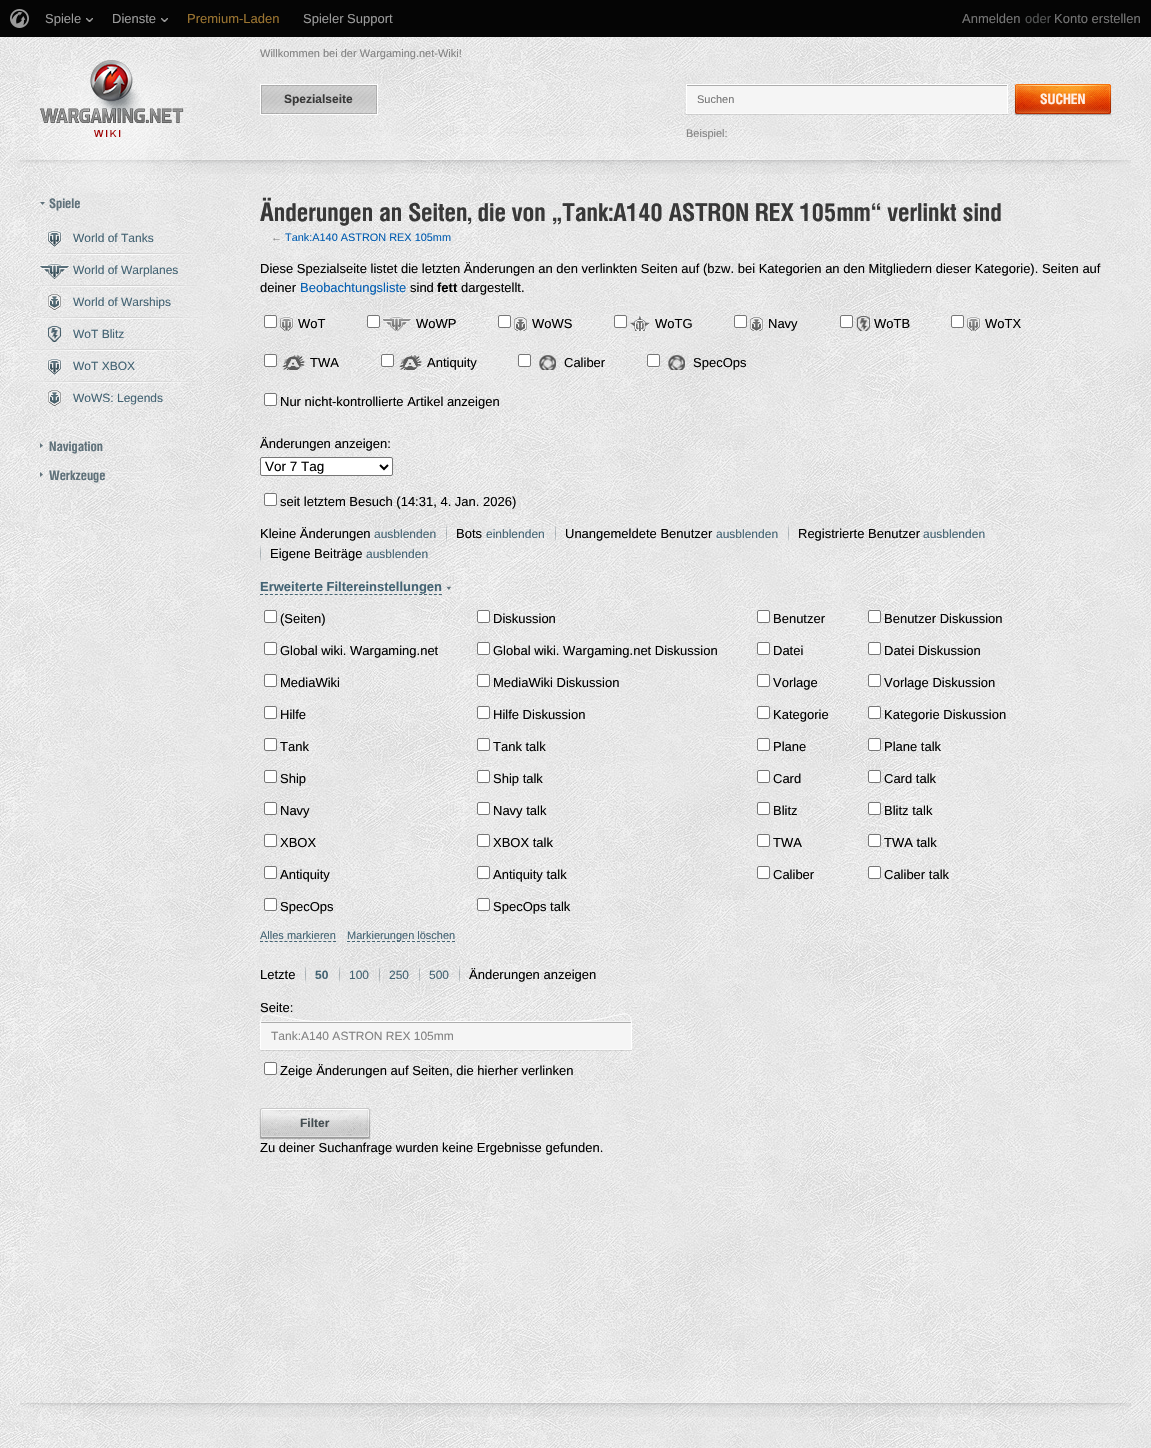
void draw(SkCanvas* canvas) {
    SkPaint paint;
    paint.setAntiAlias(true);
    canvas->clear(0xFFFFFFFF);
    canvas->drawImageRect(SkImages::DeferredFromEncodedData(SkData::MakeFromFileName("img1.png")), SkRect::MakeXYWH(0, 37, 1151, 1411), SkSamplingOptions());
    paint.setColor(0xFF050505);
    canvas->drawRect(SkRect::MakeXYWH(0, 0, 1151, 37), paint);
    paint.setStyle(SkPaint::kStroke_Style);
    paint.setStrokeWidth(1);
    paint.setColor(0x1AFFFFFF);
    canvas->drawRect(SkRect::MakeXYWH(-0.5f, -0.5f, 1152, 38), paint);
    canvas->drawImageRect(SkImages::DeferredFromEncodedData(SkData::MakeFromFileName("img2.png")), SkRect::MakeXYWH(10, 9, 19, 19), SkSamplingOptions());
    SkFont font1(fontMgr->matchFamilyStyle("Liberation Sans", SkFontStyle::Normal()), 13);
    font1.setSubpixel(true);
    paint.setStyle(SkPaint::kFill_Style);
    paint.setColor(0xFF9B9B9B);
    canvas->drawString("Spiele", 45, 23, font1, paint);
    canvas->drawImageRect(SkImages::DeferredFromEncodedData(SkData::MakeFromFileName("img3.png")), SkRect::MakeXYWH(86, 18, 7, 4), SkSamplingOptions());
    canvas->drawString("Dienste", 112, 23, font1, paint);
    canvas->drawImageRect(SkImages::DeferredFromEncodedData(SkData::MakeFromFileName("img3.png")), SkRect::MakeXYWH(161, 18, 7, 4), SkSamplingOptions());
    paint.setColor(0xFF9B7430);
    canvas->drawString("Premium-Laden", 187, 23, font1, paint);
    paint.setColor(0xFF9B9B9B);
    canvas->drawString("Spieler Support", 303, 23, font1, paint);
    paint.setColor(0xFF757575);
    canvas->drawString("Anmelden", 962, 23, font1, paint);
    paint.setColor(0xFF525454);
    canvas->drawString("oder", 1025, 23, font1, paint);
    paint.setColor(0xFF757575);
    canvas->drawString("Konto erstellen", 1054, 23, font1, paint);
    canvas->drawImageRect(SkImages::DeferredFromEncodedData(SkData::MakeFromFileName("img9.png")), SkRect::MakeXYWH(20, 136, 762, 38), SkSamplingOptions());
    canvas->drawImageRect(SkImages::DeferredFromEncodedData(SkData::MakeFromFileName("img4.png")), SkRect::MakeXYWH(39, 47, 152, 146), SkSamplingOptions());
    SkFont font2(fontMgr->matchFamilyStyle("Liberation Sans", SkFontStyle::Normal()), 11);
    font2.setSubpixel(true);
    paint.setColor(0xFF828282);
    canvas->drawString("Willkommen bei der Wargaming.net-Wiki!", 260, 57, font2, paint);
    paint.setStyle(SkPaint::kStroke_Style);
    paint.setColor(0xFFFFFFFF);
    canvas->drawRect(SkRect::MakeXYWH(260.5f, 84.5f, 117, 30), paint);
    paint.setColor(0x40000000);
    canvas->drawRect(SkRect::MakeXYWH(261.5f, 85.5f, 115, 28), paint);
    paint.setStyle(SkPaint::kFill_Style);
    paint.setColor(0xFFCECECE);
    canvas->drawRect(SkRect::MakeXYWH(375, 86, 1, 27), paint);
    canvas->drawImageRect(SkImages::DeferredFromEncodedData(SkData::MakeFromFileName("img5.png")), SkRect::MakeXYWH(262, 86, 81, 27), SkSamplingOptions());
    canvas->drawImageRect(SkImages::DeferredFromEncodedData(SkData::MakeFromFileName("img6.png")), SkRect::MakeXYWH(335, 86, 40, 27), SkSamplingOptions());
    SkFont font3(fontMgr->matchFamilyStyle("Liberation Sans", SkFontStyle::Bold()), 12);
    font3.setSubpixel(true);
    paint.setColor(0xFF383838);
    canvas->drawString("Spezialseite", 284, 103, font3, paint);
    paint.setColor(0x1A000000);
    canvas->drawRect(SkRect::MakeXYWH(686, 114, 322, 1), paint);
    paint.setColor(0xFFF5F5F5);
    canvas->drawRect(SkRect::MakeXYWH(687, 86, 320, 27), paint);
    paint.setColor(0xFFACACAC);
    canvas->drawRect(SkRect::MakeXYWH(687, 85, 320, 1), paint);
    paint.setColor(0xFFFFFFFF);
    canvas->drawRect(SkRect::MakeXYWH(686, 84, 322, 1), paint);
    canvas->drawRect(SkRect::MakeXYWH(1007, 84, 1, 30), paint);
    paint.setColor(0xFFFAFAFA);
    canvas->drawRect(SkRect::MakeXYWH(686, 113, 322, 1), paint);
    paint.setColor(0xFFFFFFFF);
    canvas->drawRect(SkRect::MakeXYWH(686, 84, 1, 30), paint);
    paint.setColor(0xFF757575);
    canvas->drawString("Suchen", 697, 103, font2, paint);
    paint.setColor(0x4D000000);
    paint.setMaskFilter(SkMaskFilter::MakeBlur(kNormal_SkBlurStyle, 0.5f));
    canvas->drawRoundRect(SkRect::MakeXYWH(1015, 85, 96, 30), 1, 1, paint);
    paint.setMaskFilter(nullptr);
    canvas->drawImageRect(SkImages::DeferredFromEncodedData(SkData::MakeFromFileName("img7.png")), SkRect::MakeXYWH(1015, 84, 63, 30), SkSamplingOptions());
    canvas->drawImageRect(SkImages::DeferredFromEncodedData(SkData::MakeFromFileName("img8.png")), SkRect::MakeXYWH(1067, 84, 44, 30), SkSamplingOptions());
    SkFont font4(fontMgr->matchFamilyStyle("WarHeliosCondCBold", SkFontStyle::Bold()), 15);
    font4.setSubpixel(true);
    paint.setColor(0xFFFFEFE6);
    canvas->drawString("SUCHEN", 1040, 104, font4, paint);
    paint.setColor(0xFF828282);
    canvas->drawString("Beispiel:", 686, 137, font2, paint);
    canvas->drawImageRect(SkImages::DeferredFromEncodedData(SkData::MakeFromFileName("img10.png")), SkRect::MakeXYWH(782, 140, 349, 34), SkSamplingOptions());
    canvas->drawImageRect(SkImages::DeferredFromEncodedData(SkData::MakeFromFileName("img11.png")), SkRect::MakeXYWH(40, 202, 5, 3), SkSamplingOptions());
    SkFont font5(fontMgr->matchFamilyStyle("WarHeliosCondCBold", SkFontStyle::Bold()), 14);
    font5.setSubpixel(true);
    paint.setColor(0xFF60727B);
    canvas->drawString("Spiele", 49, 208, font5, paint);
    canvas->drawImageRect(SkImages::DeferredFromEncodedData(SkData::MakeFromFileName("img12.png")), SkRect::MakeXYWH(47, 230, 15, 18), SkSamplingOptions());
    SkFont font6(fontMgr->matchFamilyStyle("Liberation Sans", SkFontStyle::Normal()), 12);
    font6.setSubpixel(true);
    paint.setColor(0xFF436373);
    canvas->drawString("World of Tanks", 73, 242, font6, paint);
    canvas->drawImageRect(SkImages::DeferredFromEncodedData(SkData::MakeFromFileName("img13.png")), SkRect::MakeXYWH(30, 253, 169, 2), SkSamplingOptions());
    canvas->drawImageRect(SkImages::DeferredFromEncodedData(SkData::MakeFromFileName("img14.png")), SkRect::MakeXYWH(39, 263, 31, 17), SkSamplingOptions());
    canvas->drawString("World of Warplanes", 73, 274, font6, paint);
    canvas->drawImageRect(SkImages::DeferredFromEncodedData(SkData::MakeFromFileName("img15.png")), SkRect::MakeXYWH(29, 285, 169, 2), SkSamplingOptions());
    canvas->drawImageRect(SkImages::DeferredFromEncodedData(SkData::MakeFromFileName("img16.png")), SkRect::MakeXYWH(47, 293, 15, 18), SkSamplingOptions());
    canvas->drawString("World of Warships", 73, 306, font6, paint);
    canvas->drawImageRect(SkImages::DeferredFromEncodedData(SkData::MakeFromFileName("img17.png")), SkRect::MakeXYWH(28, 317, 170, 2), SkSamplingOptions());
    canvas->drawImageRect(SkImages::DeferredFromEncodedData(SkData::MakeFromFileName("img18.png")), SkRect::MakeXYWH(48, 325, 13, 17), SkSamplingOptions());
    canvas->drawString("WoT Blitz", 73, 338, font6, paint);
    canvas->drawImageRect(SkImages::DeferredFromEncodedData(SkData::MakeFromFileName("img19.png")), SkRect::MakeXYWH(31, 349, 170, 2), SkSamplingOptions());
    canvas->drawImageRect(SkImages::DeferredFromEncodedData(SkData::MakeFromFileName("img20.png")), SkRect::MakeXYWH(47, 358, 15, 18), SkSamplingOptions());
    canvas->drawString("WoT XBOX", 73, 370, font6, paint);
    canvas->drawImageRect(SkImages::DeferredFromEncodedData(SkData::MakeFromFileName("img21.png")), SkRect::MakeXYWH(33, 381, 170, 2), SkSamplingOptions());
    canvas->drawImageRect(SkImages::DeferredFromEncodedData(SkData::MakeFromFileName("img22.png")), SkRect::MakeXYWH(47, 389, 15, 18), SkSamplingOptions());
    canvas->drawString("WoWS: Legends", 73, 402, font6, paint);
    canvas->drawImageRect(SkImages::DeferredFromEncodedData(SkData::MakeFromFileName("img23.png")), SkRect::MakeXYWH(40, 443, 3, 5), SkSamplingOptions());
    paint.setColor(0xFF60727B);
    canvas->drawString("Navigation", 49, 451, font5, paint);
    canvas->drawImageRect(SkImages::DeferredFromEncodedData(SkData::MakeFromFileName("img24.png")), SkRect::MakeXYWH(40, 472, 3, 5), SkSamplingOptions());
    canvas->drawString("Werkzeuge", 49, 480, font5, paint);
    SkFont font7(fontMgr->matchFamilyStyle("WarHeliosCondCBold", SkFontStyle::Bold()), 26);
    font7.setSubpixel(true);
    paint.setColor(0xFF383838);
    canvas->drawString("Änderungen an Seiten, die von „Tank:A140 ASTRON REX 105mm“ verlinkt sind", 260, 221, font7, paint);
    SkFont font8(fontMgr->matchFamilyStyle("Liberation Sans", SkFontStyle::Normal()), 10.9f);
    font8.setSubpixel(true);
    paint.setColor(0xFF828282);
    canvas->drawString("←", 271, 241, font8, paint);
    paint.setColor(0xFF025DB1);
    canvas->drawString("Tank:A140 ASTRON REX 105mm", 285, 241, font8, paint);
    paint.setColor(0xFF000000);
    canvas->drawString("Diese Spezialseite listet die letzten Änderungen an den verlinkten Seiten auf (bzw. bei Kategorien an den Mitgliedern dieser Kategorie). Seiten auf", 260, 273, font1, paint);
    canvas->drawString("deiner", 260, 292, font1, paint);
    paint.setColor(0xFF025DB1);
    canvas->drawString("Beobachtungsliste", 300, 292, font1, paint);
    paint.setColor(0xFF000000);
    canvas->drawString("sind", 410, 292, font1, paint);
    SkFont font9(fontMgr->matchFamilyStyle("Liberation Sans", SkFontStyle::Bold()), 13);
    font9.setSubpixel(true);
    canvas->drawString("fett", 437, 292, font9, paint);
    canvas->drawString("dargestellt.", 461, 292, font1, paint);
    paint.setColor(0xFFFFFFFF);
    canvas->drawRoundRect(SkRect::MakeXYWH(264.5f, 315.5f, 12, 12), 1.5f, 1.5f, paint);
    paint.setStyle(SkPaint::kStroke_Style);
    paint.setColor(0xFF767676);
    canvas->drawRoundRect(SkRect::MakeXYWH(264.5f, 315.5f, 12, 12), 1.5f, 1.5f, paint);
    canvas->drawImageRect(SkImages::DeferredFromEncodedData(SkData::MakeFromFileName("img25.png")), SkRect::MakeXYWH(280, 316, 14, 15), SkSamplingOptions());
    paint.setStyle(SkPaint::kFill_Style);
    paint.setColor(0xFF000000);
    canvas->drawString("WoT", 298, 328, font1, paint);
    paint.setColor(0xFFFFFFFF);
    canvas->drawRoundRect(SkRect::MakeXYWH(367.5f, 315.5f, 12, 12), 1.5f, 1.5f, paint);
    paint.setStyle(SkPaint::kStroke_Style);
    paint.setColor(0xFF767676);
    canvas->drawRoundRect(SkRect::MakeXYWH(367.5f, 315.5f, 12, 12), 1.5f, 1.5f, paint);
    canvas->drawImageRect(SkImages::DeferredFromEncodedData(SkData::MakeFromFileName("img26.png")), SkRect::MakeXYWH(383, 316, 29, 15), SkSamplingOptions());
    paint.setStyle(SkPaint::kFill_Style);
    paint.setColor(0xFF000000);
    canvas->drawString("WoWP", 416, 328, font1, paint);
    paint.setColor(0xFFFFFFFF);
    canvas->drawRoundRect(SkRect::MakeXYWH(498.5f, 315.5f, 12, 12), 1.5f, 1.5f, paint);
    paint.setStyle(SkPaint::kStroke_Style);
    paint.setColor(0xFF767676);
    canvas->drawRoundRect(SkRect::MakeXYWH(498.5f, 315.5f, 12, 12), 1.5f, 1.5f, paint);
    canvas->drawImageRect(SkImages::DeferredFromEncodedData(SkData::MakeFromFileName("img27.png")), SkRect::MakeXYWH(514, 316, 14, 15), SkSamplingOptions());
    paint.setStyle(SkPaint::kFill_Style);
    paint.setColor(0xFF000000);
    canvas->drawString("WoWS", 532, 328, font1, paint);
    paint.setColor(0xFFFFFFFF);
    canvas->drawRoundRect(SkRect::MakeXYWH(614.5f, 315.5f, 12, 12), 1.5f, 1.5f, paint);
    paint.setStyle(SkPaint::kStroke_Style);
    paint.setColor(0xFF767676);
    canvas->drawRoundRect(SkRect::MakeXYWH(614.5f, 315.5f, 12, 12), 1.5f, 1.5f, paint);
    canvas->drawImageRect(SkImages::DeferredFromEncodedData(SkData::MakeFromFileName("img28.png")), SkRect::MakeXYWH(630, 316, 20, 15), SkSamplingOptions());
    paint.setStyle(SkPaint::kFill_Style);
    paint.setColor(0xFF000000);
    canvas->drawString("WoTG", 655, 328, font1, paint);
    paint.setColor(0xFFFFFFFF);
    canvas->drawRoundRect(SkRect::MakeXYWH(734.5f, 315.5f, 12, 12), 1.5f, 1.5f, paint);
    paint.setStyle(SkPaint::kStroke_Style);
    paint.setColor(0xFF767676);
    canvas->drawRoundRect(SkRect::MakeXYWH(734.5f, 315.5f, 12, 12), 1.5f, 1.5f, paint);
    canvas->drawImageRect(SkImages::DeferredFromEncodedData(SkData::MakeFromFileName("img29.png")), SkRect::MakeXYWH(750, 316, 14, 15), SkSamplingOptions());
    paint.setStyle(SkPaint::kFill_Style);
    paint.setColor(0xFF000000);
    canvas->drawString("Navy", 768, 328, font1, paint);
    paint.setColor(0xFFFFFFFF);
    canvas->drawRoundRect(SkRect::MakeXYWH(840.5f, 315.5f, 12, 12), 1.5f, 1.5f, paint);
    paint.setStyle(SkPaint::kStroke_Style);
    paint.setColor(0xFF767676);
    canvas->drawRoundRect(SkRect::MakeXYWH(840.5f, 315.5f, 12, 12), 1.5f, 1.5f, paint);
    canvas->drawImageRect(SkImages::DeferredFromEncodedData(SkData::MakeFromFileName("img30.png")), SkRect::MakeXYWH(856, 316, 14, 15), SkSamplingOptions());
    paint.setStyle(SkPaint::kFill_Style);
    paint.setColor(0xFF000000);
    canvas->drawString("WoTB", 874, 328, font1, paint);
    paint.setColor(0xFFFFFFFF);
    canvas->drawRoundRect(SkRect::MakeXYWH(951.5f, 315.5f, 12, 12), 1.5f, 1.5f, paint);
    paint.setStyle(SkPaint::kStroke_Style);
    paint.setColor(0xFF767676);
    canvas->drawRoundRect(SkRect::MakeXYWH(951.5f, 315.5f, 12, 12), 1.5f, 1.5f, paint);
    canvas->drawImageRect(SkImages::DeferredFromEncodedData(SkData::MakeFromFileName("img31.png")), SkRect::MakeXYWH(967, 316, 14, 15), SkSamplingOptions());
    paint.setStyle(SkPaint::kFill_Style);
    paint.setColor(0xFF000000);
    canvas->drawString("WoTX", 985, 328, font1, paint);
    paint.setColor(0xFFFFFFFF);
    canvas->drawRoundRect(SkRect::MakeXYWH(264.5f, 354.5f, 12, 12), 1.5f, 1.5f, paint);
    paint.setStyle(SkPaint::kStroke_Style);
    paint.setColor(0xFF767676);
    canvas->drawRoundRect(SkRect::MakeXYWH(264.5f, 354.5f, 12, 12), 1.5f, 1.5f, paint);
    canvas->drawImageRect(SkImages::DeferredFromEncodedData(SkData::MakeFromFileName("img32.png")), SkRect::MakeXYWH(282, 355, 23, 15), SkSamplingOptions());
    paint.setStyle(SkPaint::kFill_Style);
    paint.setColor(0xFF000000);
    canvas->drawString("TWA", 310, 367, font1, paint);
    paint.setColor(0xFFFFFFFF);
    canvas->drawRoundRect(SkRect::MakeXYWH(381.5f, 354.5f, 12, 12), 1.5f, 1.5f, paint);
    paint.setStyle(SkPaint::kStroke_Style);
    paint.setColor(0xFF767676);
    canvas->drawRoundRect(SkRect::MakeXYWH(381.5f, 354.5f, 12, 12), 1.5f, 1.5f, paint);
    canvas->drawImageRect(SkImages::DeferredFromEncodedData(SkData::MakeFromFileName("img33.png")), SkRect::MakeXYWH(399, 355, 23, 15), SkSamplingOptions());
    paint.setStyle(SkPaint::kFill_Style);
    paint.setColor(0xFF000000);
    canvas->drawString("Antiquity", 427, 367, font1, paint);
    paint.setColor(0xFFFFFFFF);
    canvas->drawRoundRect(SkRect::MakeXYWH(518.5f, 354.5f, 12, 12), 1.5f, 1.5f, paint);
    paint.setStyle(SkPaint::kStroke_Style);
    paint.setColor(0xFF767676);
    canvas->drawRoundRect(SkRect::MakeXYWH(518.5f, 354.5f, 12, 12), 1.5f, 1.5f, paint);
    canvas->drawImageRect(SkImages::DeferredFromEncodedData(SkData::MakeFromFileName("img34.png")), SkRect::MakeXYWH(539, 355, 17, 15), SkSamplingOptions());
    paint.setStyle(SkPaint::kFill_Style);
    paint.setColor(0xFF000000);
    canvas->drawString("Caliber", 564, 367, font1, paint);
    paint.setColor(0xFFFFFFFF);
    canvas->drawRoundRect(SkRect::MakeXYWH(647.5f, 354.5f, 12, 12), 1.5f, 1.5f, paint);
    paint.setStyle(SkPaint::kStroke_Style);
    paint.setColor(0xFF767676);
    canvas->drawRoundRect(SkRect::MakeXYWH(647.5f, 354.5f, 12, 12), 1.5f, 1.5f, paint);
    canvas->drawImageRect(SkImages::DeferredFromEncodedData(SkData::MakeFromFileName("img35.png")), SkRect::MakeXYWH(668, 355, 17, 15), SkSamplingOptions());
    paint.setStyle(SkPaint::kFill_Style);
    paint.setColor(0xFF000000);
    canvas->drawString("SpecOps", 693, 367, font1, paint);
    paint.setColor(0xFFFFFFFF);
    canvas->drawRoundRect(SkRect::MakeXYWH(264.5f, 393.5f, 12, 12), 1.5f, 1.5f, paint);
    paint.setStyle(SkPaint::kStroke_Style);
    paint.setColor(0xFF767676);
    canvas->drawRoundRect(SkRect::MakeXYWH(264.5f, 393.5f, 12, 12), 1.5f, 1.5f, paint);
    paint.setStyle(SkPaint::kFill_Style);
    paint.setColor(0xFF000000);
    canvas->drawString("Nur nicht-kontrollierte Artikel anzeigen", 280, 406, font1, paint);
    canvas->drawString("Änderungen anzeigen:", 260, 448, font1, paint);
    paint.setColor(0xFFFFFFFF);
    canvas->drawRoundRect(SkRect::MakeXYWH(260.5f, 457.5f, 132, 18), 1.5f, 1.5f, paint);
    paint.setStyle(SkPaint::kStroke_Style);
    paint.setColor(0xFF767676);
    canvas->drawRoundRect(SkRect::MakeXYWH(260.5f, 457.5f, 132, 18), 1.5f, 1.5f, paint);
    paint.setStrokeWidth(2);
    paint.setColor(0xFF000000);
    canvas->drawPath(SkPathBuilder().moveTo(380, 465).lineTo(384, 469).lineTo(388, 465).detach(), paint);
    SkFont font10(fontMgr->matchFamilyStyle("Liberation Sans", SkFontStyle::Normal()), 13.5f);
    font10.setSubpixel(true);
    paint.setStyle(SkPaint::kFill_Style);
    canvas->drawString("Vor 7 Tag", 265, 471, font10, paint);
    paint.setColor(0xFFFFFFFF);
    canvas->drawRoundRect(SkRect::MakeXYWH(264.5f, 493.5f, 12, 12), 1.5f, 1.5f, paint);
    paint.setStyle(SkPaint::kStroke_Style);
    paint.setStrokeWidth(1);
    paint.setColor(0xFF767676);
    canvas->drawRoundRect(SkRect::MakeXYWH(264.5f, 493.5f, 12, 12), 1.5f, 1.5f, paint);
    paint.setStyle(SkPaint::kFill_Style);
    paint.setColor(0xFF000000);
    canvas->drawString("seit letztem Besuch (14:31, 4. Jan. 2026)", 280, 506, font1, paint);
    canvas->drawString("Kleine Änderungen", 260, 538, font1, paint);
    paint.setColor(0xFF436373);
    canvas->drawString("ausblenden", 374, 538, font6, paint);
    canvas->drawImageRect(SkImages::DeferredFromEncodedData(SkData::MakeFromFileName("img36.png")), SkRect::MakeXYWH(446, 525, 1, 17), SkSamplingOptions());
    paint.setColor(0xFF000000);
    canvas->drawString("Bots", 456, 538, font1, paint);
    paint.setColor(0xFF436373);
    canvas->drawString("einblenden", 486, 538, font6, paint);
    canvas->drawImageRect(SkImages::DeferredFromEncodedData(SkData::MakeFromFileName("img37.png")), SkRect::MakeXYWH(555, 525, 1, 17), SkSamplingOptions());
    paint.setColor(0xFF000000);
    canvas->drawString("Unangemeldete Benutzer", 565, 538, font1, paint);
    paint.setColor(0xFF436373);
    canvas->drawString("ausblenden", 716, 538, font6, paint);
    canvas->drawImageRect(SkImages::DeferredFromEncodedData(SkData::MakeFromFileName("img38.png")), SkRect::MakeXYWH(788, 525, 1, 17), SkSamplingOptions());
    paint.setColor(0xFF000000);
    canvas->drawString("Registrierte Benutzer", 798, 538, font1, paint);
    paint.setColor(0xFF436373);
    canvas->drawString("ausblenden", 923, 538, font6, paint);
    canvas->drawImageRect(SkImages::DeferredFromEncodedData(SkData::MakeFromFileName("img39.png")), SkRect::MakeXYWH(260, 545, 1, 17), SkSamplingOptions());
    paint.setColor(0xFF000000);
    canvas->drawString("Eigene Beiträge", 270, 558, font1, paint);
    paint.setColor(0xFF436373);
    canvas->drawString("ausblenden", 366, 558, font6, paint);
    canvas->drawImageRect(SkImages::DeferredFromEncodedData(SkData::MakeFromFileName("img40.png")), SkRect::MakeXYWH(446, 586, 5, 4), SkSamplingOptions());
    canvas->drawString("Erweiterte Filtereinstellungen", 260, 591, font9, paint);
    paint.setStyle(SkPaint::kStroke_Style);
    paint.setPathEffect(SkDashPathEffect::Make({{3, 1.97f}}, 0));
    canvas->drawPath(SkPathBuilder().moveTo(260, 594.5f).lineTo(442, 594.5f).detach(), paint);
    paint.setPathEffect(nullptr);
    paint.setStyle(SkPaint::kFill_Style);
    paint.setColor(0xFFFFFFFF);
    canvas->drawRoundRect(SkRect::MakeXYWH(264.5f, 610.5f, 12, 12), 1.5f, 1.5f, paint);
    paint.setStyle(SkPaint::kStroke_Style);
    paint.setColor(0xFF767676);
    canvas->drawRoundRect(SkRect::MakeXYWH(264.5f, 610.5f, 12, 12), 1.5f, 1.5f, paint);
    paint.setStyle(SkPaint::kFill_Style);
    paint.setColor(0xFF000000);
    canvas->drawString("(Seiten)", 280, 623, font1, paint);
    paint.setColor(0xFFFFFFFF);
    canvas->drawRoundRect(SkRect::MakeXYWH(477.5f, 610.5f, 12, 12), 1.5f, 1.5f, paint);
    paint.setStyle(SkPaint::kStroke_Style);
    paint.setColor(0xFF767676);
    canvas->drawRoundRect(SkRect::MakeXYWH(477.5f, 610.5f, 12, 12), 1.5f, 1.5f, paint);
    paint.setStyle(SkPaint::kFill_Style);
    paint.setColor(0xFF000000);
    canvas->drawString("Diskussion", 493, 623, font1, paint);
    paint.setColor(0xFFFFFFFF);
    canvas->drawRoundRect(SkRect::MakeXYWH(757.5f, 610.5f, 12, 12), 1.5f, 1.5f, paint);
    paint.setStyle(SkPaint::kStroke_Style);
    paint.setColor(0xFF767676);
    canvas->drawRoundRect(SkRect::MakeXYWH(757.5f, 610.5f, 12, 12), 1.5f, 1.5f, paint);
    paint.setStyle(SkPaint::kFill_Style);
    paint.setColor(0xFF000000);
    canvas->drawString("Benutzer", 773, 623, font1, paint);
    paint.setColor(0xFFFFFFFF);
    canvas->drawRoundRect(SkRect::MakeXYWH(868.5f, 610.5f, 12, 12), 1.5f, 1.5f, paint);
    paint.setStyle(SkPaint::kStroke_Style);
    paint.setColor(0xFF767676);
    canvas->drawRoundRect(SkRect::MakeXYWH(868.5f, 610.5f, 12, 12), 1.5f, 1.5f, paint);
    paint.setStyle(SkPaint::kFill_Style);
    paint.setColor(0xFF000000);
    canvas->drawString("Benutzer Diskussion", 884, 623, font1, paint);
    paint.setColor(0xFFFFFFFF);
    canvas->drawRoundRect(SkRect::MakeXYWH(264.5f, 642.5f, 12, 12), 1.5f, 1.5f, paint);
    paint.setStyle(SkPaint::kStroke_Style);
    paint.setColor(0xFF767676);
    canvas->drawRoundRect(SkRect::MakeXYWH(264.5f, 642.5f, 12, 12), 1.5f, 1.5f, paint);
    paint.setStyle(SkPaint::kFill_Style);
    paint.setColor(0xFF000000);
    canvas->drawString("Global wiki. Wargaming.net", 280, 655, font1, paint);
    paint.setColor(0xFFFFFFFF);
    canvas->drawRoundRect(SkRect::MakeXYWH(477.5f, 642.5f, 12, 12), 1.5f, 1.5f, paint);
    paint.setStyle(SkPaint::kStroke_Style);
    paint.setColor(0xFF767676);
    canvas->drawRoundRect(SkRect::MakeXYWH(477.5f, 642.5f, 12, 12), 1.5f, 1.5f, paint);
    paint.setStyle(SkPaint::kFill_Style);
    paint.setColor(0xFF000000);
    canvas->drawString("Global wiki. Wargaming.net Diskussion", 493, 655, font1, paint);
    paint.setColor(0xFFFFFFFF);
    canvas->drawRoundRect(SkRect::MakeXYWH(757.5f, 642.5f, 12, 12), 1.5f, 1.5f, paint);
    paint.setStyle(SkPaint::kStroke_Style);
    paint.setColor(0xFF767676);
    canvas->drawRoundRect(SkRect::MakeXYWH(757.5f, 642.5f, 12, 12), 1.5f, 1.5f, paint);
    paint.setStyle(SkPaint::kFill_Style);
    paint.setColor(0xFF000000);
    canvas->drawString("Datei", 773, 655, font1, paint);
    paint.setColor(0xFFFFFFFF);
    canvas->drawRoundRect(SkRect::MakeXYWH(868.5f, 642.5f, 12, 12), 1.5f, 1.5f, paint);
    paint.setStyle(SkPaint::kStroke_Style);
    paint.setColor(0xFF767676);
    canvas->drawRoundRect(SkRect::MakeXYWH(868.5f, 642.5f, 12, 12), 1.5f, 1.5f, paint);
    paint.setStyle(SkPaint::kFill_Style);
    paint.setColor(0xFF000000);
    canvas->drawString("Datei Diskussion", 884, 655, font1, paint);
    paint.setColor(0xFFFFFFFF);
    canvas->drawRoundRect(SkRect::MakeXYWH(264.5f, 674.5f, 12, 12), 1.5f, 1.5f, paint);
    paint.setStyle(SkPaint::kStroke_Style);
    paint.setColor(0xFF767676);
    canvas->drawRoundRect(SkRect::MakeXYWH(264.5f, 674.5f, 12, 12), 1.5f, 1.5f, paint);
    paint.setStyle(SkPaint::kFill_Style);
    paint.setColor(0xFF000000);
    canvas->drawString("MediaWiki", 280, 687, font1, paint);
    paint.setColor(0xFFFFFFFF);
    canvas->drawRoundRect(SkRect::MakeXYWH(477.5f, 674.5f, 12, 12), 1.5f, 1.5f, paint);
    paint.setStyle(SkPaint::kStroke_Style);
    paint.setColor(0xFF767676);
    canvas->drawRoundRect(SkRect::MakeXYWH(477.5f, 674.5f, 12, 12), 1.5f, 1.5f, paint);
    paint.setStyle(SkPaint::kFill_Style);
    paint.setColor(0xFF000000);
    canvas->drawString("MediaWiki Diskussion", 493, 687, font1, paint);
    paint.setColor(0xFFFFFFFF);
    canvas->drawRoundRect(SkRect::MakeXYWH(757.5f, 674.5f, 12, 12), 1.5f, 1.5f, paint);
    paint.setStyle(SkPaint::kStroke_Style);
    paint.setColor(0xFF767676);
    canvas->drawRoundRect(SkRect::MakeXYWH(757.5f, 674.5f, 12, 12), 1.5f, 1.5f, paint);
    paint.setStyle(SkPaint::kFill_Style);
    paint.setColor(0xFF000000);
    canvas->drawString("Vorlage", 773, 687, font1, paint);
    paint.setColor(0xFFFFFFFF);
    canvas->drawRoundRect(SkRect::MakeXYWH(868.5f, 674.5f, 12, 12), 1.5f, 1.5f, paint);
    paint.setStyle(SkPaint::kStroke_Style);
    paint.setColor(0xFF767676);
    canvas->drawRoundRect(SkRect::MakeXYWH(868.5f, 674.5f, 12, 12), 1.5f, 1.5f, paint);
    paint.setStyle(SkPaint::kFill_Style);
    paint.setColor(0xFF000000);
    canvas->drawString("Vorlage Diskussion", 884, 687, font1, paint);
    paint.setColor(0xFFFFFFFF);
    canvas->drawRoundRect(SkRect::MakeXYWH(264.5f, 706.5f, 12, 12), 1.5f, 1.5f, paint);
    paint.setStyle(SkPaint::kStroke_Style);
    paint.setColor(0xFF767676);
    canvas->drawRoundRect(SkRect::MakeXYWH(264.5f, 706.5f, 12, 12), 1.5f, 1.5f, paint);
    paint.setStyle(SkPaint::kFill_Style);
    paint.setColor(0xFF000000);
    canvas->drawString("Hilfe", 280, 719, font1, paint);
    paint.setColor(0xFFFFFFFF);
    canvas->drawRoundRect(SkRect::MakeXYWH(477.5f, 706.5f, 12, 12), 1.5f, 1.5f, paint);
    paint.setStyle(SkPaint::kStroke_Style);
    paint.setColor(0xFF767676);
    canvas->drawRoundRect(SkRect::MakeXYWH(477.5f, 706.5f, 12, 12), 1.5f, 1.5f, paint);
    paint.setStyle(SkPaint::kFill_Style);
    paint.setColor(0xFF000000);
    canvas->drawString("Hilfe Diskussion", 493, 719, font1, paint);
    paint.setColor(0xFFFFFFFF);
    canvas->drawRoundRect(SkRect::MakeXYWH(757.5f, 706.5f, 12, 12), 1.5f, 1.5f, paint);
    paint.setStyle(SkPaint::kStroke_Style);
    paint.setColor(0xFF767676);
    canvas->drawRoundRect(SkRect::MakeXYWH(757.5f, 706.5f, 12, 12), 1.5f, 1.5f, paint);
    paint.setStyle(SkPaint::kFill_Style);
    paint.setColor(0xFF000000);
    canvas->drawString("Kategorie", 773, 719, font1, paint);
    paint.setColor(0xFFFFFFFF);
    canvas->drawRoundRect(SkRect::MakeXYWH(868.5f, 706.5f, 12, 12), 1.5f, 1.5f, paint);
    paint.setStyle(SkPaint::kStroke_Style);
    paint.setColor(0xFF767676);
    canvas->drawRoundRect(SkRect::MakeXYWH(868.5f, 706.5f, 12, 12), 1.5f, 1.5f, paint);
    paint.setStyle(SkPaint::kFill_Style);
    paint.setColor(0xFF000000);
    canvas->drawString("Kategorie Diskussion", 884, 719, font1, paint);
    paint.setColor(0xFFFFFFFF);
    canvas->drawRoundRect(SkRect::MakeXYWH(264.5f, 738.5f, 12, 12), 1.5f, 1.5f, paint);
    paint.setStyle(SkPaint::kStroke_Style);
    paint.setColor(0xFF767676);
    canvas->drawRoundRect(SkRect::MakeXYWH(264.5f, 738.5f, 12, 12), 1.5f, 1.5f, paint);
    paint.setStyle(SkPaint::kFill_Style);
    paint.setColor(0xFF000000);
    canvas->drawString("Tank", 280, 751, font1, paint);
    paint.setColor(0xFFFFFFFF);
    canvas->drawRoundRect(SkRect::MakeXYWH(477.5f, 738.5f, 12, 12), 1.5f, 1.5f, paint);
    paint.setStyle(SkPaint::kStroke_Style);
    paint.setColor(0xFF767676);
    canvas->drawRoundRect(SkRect::MakeXYWH(477.5f, 738.5f, 12, 12), 1.5f, 1.5f, paint);
    paint.setStyle(SkPaint::kFill_Style);
    paint.setColor(0xFF000000);
    canvas->drawString("Tank talk", 493, 751, font1, paint);
    paint.setColor(0xFFFFFFFF);
    canvas->drawRoundRect(SkRect::MakeXYWH(757.5f, 738.5f, 12, 12), 1.5f, 1.5f, paint);
    paint.setStyle(SkPaint::kStroke_Style);
    paint.setColor(0xFF767676);
    canvas->drawRoundRect(SkRect::MakeXYWH(757.5f, 738.5f, 12, 12), 1.5f, 1.5f, paint);
    paint.setStyle(SkPaint::kFill_Style);
    paint.setColor(0xFF000000);
    canvas->drawString("Plane", 773, 751, font1, paint);
    paint.setColor(0xFFFFFFFF);
    canvas->drawRoundRect(SkRect::MakeXYWH(868.5f, 738.5f, 12, 12), 1.5f, 1.5f, paint);
    paint.setStyle(SkPaint::kStroke_Style);
    paint.setColor(0xFF767676);
    canvas->drawRoundRect(SkRect::MakeXYWH(868.5f, 738.5f, 12, 12), 1.5f, 1.5f, paint);
    paint.setStyle(SkPaint::kFill_Style);
    paint.setColor(0xFF000000);
    canvas->drawString("Plane talk", 884, 751, font1, paint);
    paint.setColor(0xFFFFFFFF);
    canvas->drawRoundRect(SkRect::MakeXYWH(264.5f, 770.5f, 12, 12), 1.5f, 1.5f, paint);
    paint.setStyle(SkPaint::kStroke_Style);
    paint.setColor(0xFF767676);
    canvas->drawRoundRect(SkRect::MakeXYWH(264.5f, 770.5f, 12, 12), 1.5f, 1.5f, paint);
    paint.setStyle(SkPaint::kFill_Style);
    paint.setColor(0xFF000000);
    canvas->drawString("Ship", 280, 783, font1, paint);
    paint.setColor(0xFFFFFFFF);
    canvas->drawRoundRect(SkRect::MakeXYWH(477.5f, 770.5f, 12, 12), 1.5f, 1.5f, paint);
    paint.setStyle(SkPaint::kStroke_Style);
    paint.setColor(0xFF767676);
    canvas->drawRoundRect(SkRect::MakeXYWH(477.5f, 770.5f, 12, 12), 1.5f, 1.5f, paint);
    paint.setStyle(SkPaint::kFill_Style);
    paint.setColor(0xFF000000);
    canvas->drawString("Ship talk", 493, 783, font1, paint);
    paint.setColor(0xFFFFFFFF);
    canvas->drawRoundRect(SkRect::MakeXYWH(757.5f, 770.5f, 12, 12), 1.5f, 1.5f, paint);
    paint.setStyle(SkPaint::kStroke_Style);
    paint.setColor(0xFF767676);
    canvas->drawRoundRect(SkRect::MakeXYWH(757.5f, 770.5f, 12, 12), 1.5f, 1.5f, paint);
    paint.setStyle(SkPaint::kFill_Style);
    paint.setColor(0xFF000000);
    canvas->drawString("Card", 773, 783, font1, paint);
    paint.setColor(0xFFFFFFFF);
    canvas->drawRoundRect(SkRect::MakeXYWH(868.5f, 770.5f, 12, 12), 1.5f, 1.5f, paint);
    paint.setStyle(SkPaint::kStroke_Style);
    paint.setColor(0xFF767676);
    canvas->drawRoundRect(SkRect::MakeXYWH(868.5f, 770.5f, 12, 12), 1.5f, 1.5f, paint);
    paint.setStyle(SkPaint::kFill_Style);
    paint.setColor(0xFF000000);
    canvas->drawString("Card talk", 884, 783, font1, paint);
    paint.setColor(0xFFFFFFFF);
    canvas->drawRoundRect(SkRect::MakeXYWH(264.5f, 802.5f, 12, 12), 1.5f, 1.5f, paint);
    paint.setStyle(SkPaint::kStroke_Style);
    paint.setColor(0xFF767676);
    canvas->drawRoundRect(SkRect::MakeXYWH(264.5f, 802.5f, 12, 12), 1.5f, 1.5f, paint);
    paint.setStyle(SkPaint::kFill_Style);
    paint.setColor(0xFF000000);
    canvas->drawString("Navy", 280, 815, font1, paint);
    paint.setColor(0xFFFFFFFF);
    canvas->drawRoundRect(SkRect::MakeXYWH(477.5f, 802.5f, 12, 12), 1.5f, 1.5f, paint);
    paint.setStyle(SkPaint::kStroke_Style);
    paint.setColor(0xFF767676);
    canvas->drawRoundRect(SkRect::MakeXYWH(477.5f, 802.5f, 12, 12), 1.5f, 1.5f, paint);
    paint.setStyle(SkPaint::kFill_Style);
    paint.setColor(0xFF000000);
    canvas->drawString("Navy talk", 493, 815, font1, paint);
    paint.setColor(0xFFFFFFFF);
    canvas->drawRoundRect(SkRect::MakeXYWH(757.5f, 802.5f, 12, 12), 1.5f, 1.5f, paint);
    paint.setStyle(SkPaint::kStroke_Style);
    paint.setColor(0xFF767676);
    canvas->drawRoundRect(SkRect::MakeXYWH(757.5f, 802.5f, 12, 12), 1.5f, 1.5f, paint);
    paint.setStyle(SkPaint::kFill_Style);
    paint.setColor(0xFF000000);
    canvas->drawString("Blitz", 773, 815, font1, paint);
    paint.setColor(0xFFFFFFFF);
    canvas->drawRoundRect(SkRect::MakeXYWH(868.5f, 802.5f, 12, 12), 1.5f, 1.5f, paint);
    paint.setStyle(SkPaint::kStroke_Style);
    paint.setColor(0xFF767676);
    canvas->drawRoundRect(SkRect::MakeXYWH(868.5f, 802.5f, 12, 12), 1.5f, 1.5f, paint);
    paint.setStyle(SkPaint::kFill_Style);
    paint.setColor(0xFF000000);
    canvas->drawString("Blitz talk", 884, 815, font1, paint);
    paint.setColor(0xFFFFFFFF);
    canvas->drawRoundRect(SkRect::MakeXYWH(264.5f, 834.5f, 12, 12), 1.5f, 1.5f, paint);
    paint.setStyle(SkPaint::kStroke_Style);
    paint.setColor(0xFF767676);
    canvas->drawRoundRect(SkRect::MakeXYWH(264.5f, 834.5f, 12, 12), 1.5f, 1.5f, paint);
    paint.setStyle(SkPaint::kFill_Style);
    paint.setColor(0xFF000000);
    canvas->drawString("XBOX", 280, 847, font1, paint);
    paint.setColor(0xFFFFFFFF);
    canvas->drawRoundRect(SkRect::MakeXYWH(477.5f, 834.5f, 12, 12), 1.5f, 1.5f, paint);
    paint.setStyle(SkPaint::kStroke_Style);
    paint.setColor(0xFF767676);
    canvas->drawRoundRect(SkRect::MakeXYWH(477.5f, 834.5f, 12, 12), 1.5f, 1.5f, paint);
    paint.setStyle(SkPaint::kFill_Style);
    paint.setColor(0xFF000000);
    canvas->drawString("XBOX talk", 493, 847, font1, paint);
    paint.setColor(0xFFFFFFFF);
    canvas->drawRoundRect(SkRect::MakeXYWH(757.5f, 834.5f, 12, 12), 1.5f, 1.5f, paint);
    paint.setStyle(SkPaint::kStroke_Style);
    paint.setColor(0xFF767676);
    canvas->drawRoundRect(SkRect::MakeXYWH(757.5f, 834.5f, 12, 12), 1.5f, 1.5f, paint);
    paint.setStyle(SkPaint::kFill_Style);
    paint.setColor(0xFF000000);
    canvas->drawString("TWA", 773, 847, font1, paint);
    paint.setColor(0xFFFFFFFF);
    canvas->drawRoundRect(SkRect::MakeXYWH(868.5f, 834.5f, 12, 12), 1.5f, 1.5f, paint);
    paint.setStyle(SkPaint::kStroke_Style);
    paint.setColor(0xFF767676);
    canvas->drawRoundRect(SkRect::MakeXYWH(868.5f, 834.5f, 12, 12), 1.5f, 1.5f, paint);
    paint.setStyle(SkPaint::kFill_Style);
    paint.setColor(0xFF000000);
    canvas->drawString("TWA talk", 884, 847, font1, paint);
    paint.setColor(0xFFFFFFFF);
    canvas->drawRoundRect(SkRect::MakeXYWH(264.5f, 866.5f, 12, 12), 1.5f, 1.5f, paint);
    paint.setStyle(SkPaint::kStroke_Style);
    paint.setColor(0xFF767676);
    canvas->drawRoundRect(SkRect::MakeXYWH(264.5f, 866.5f, 12, 12), 1.5f, 1.5f, paint);
    paint.setStyle(SkPaint::kFill_Style);
    paint.setColor(0xFF000000);
    canvas->drawString("Antiquity", 280, 879, font1, paint);
    paint.setColor(0xFFFFFFFF);
    canvas->drawRoundRect(SkRect::MakeXYWH(477.5f, 866.5f, 12, 12), 1.5f, 1.5f, paint);
    paint.setStyle(SkPaint::kStroke_Style);
    paint.setColor(0xFF767676);
    canvas->drawRoundRect(SkRect::MakeXYWH(477.5f, 866.5f, 12, 12), 1.5f, 1.5f, paint);
    paint.setStyle(SkPaint::kFill_Style);
    paint.setColor(0xFF000000);
    canvas->drawString("Antiquity talk", 493, 879, font1, paint);
    paint.setColor(0xFFFFFFFF);
    canvas->drawRoundRect(SkRect::MakeXYWH(757.5f, 866.5f, 12, 12), 1.5f, 1.5f, paint);
    paint.setStyle(SkPaint::kStroke_Style);
    paint.setColor(0xFF767676);
    canvas->drawRoundRect(SkRect::MakeXYWH(757.5f, 866.5f, 12, 12), 1.5f, 1.5f, paint);
    paint.setStyle(SkPaint::kFill_Style);
    paint.setColor(0xFF000000);
    canvas->drawString("Caliber", 773, 879, font1, paint);
    paint.setColor(0xFFFFFFFF);
    canvas->drawRoundRect(SkRect::MakeXYWH(868.5f, 866.5f, 12, 12), 1.5f, 1.5f, paint);
    paint.setStyle(SkPaint::kStroke_Style);
    paint.setColor(0xFF767676);
    canvas->drawRoundRect(SkRect::MakeXYWH(868.5f, 866.5f, 12, 12), 1.5f, 1.5f, paint);
    paint.setStyle(SkPaint::kFill_Style);
    paint.setColor(0xFF000000);
    canvas->drawString("Caliber talk", 884, 879, font1, paint);
    paint.setColor(0xFFFFFFFF);
    canvas->drawRoundRect(SkRect::MakeXYWH(264.5f, 898.5f, 12, 12), 1.5f, 1.5f, paint);
    paint.setStyle(SkPaint::kStroke_Style);
    paint.setColor(0xFF767676);
    canvas->drawRoundRect(SkRect::MakeXYWH(264.5f, 898.5f, 12, 12), 1.5f, 1.5f, paint);
    paint.setStyle(SkPaint::kFill_Style);
    paint.setColor(0xFF000000);
    canvas->drawString("SpecOps", 280, 911, font1, paint);
    paint.setColor(0xFFFFFFFF);
    canvas->drawRoundRect(SkRect::MakeXYWH(477.5f, 898.5f, 12, 12), 1.5f, 1.5f, paint);
    paint.setStyle(SkPaint::kStroke_Style);
    paint.setColor(0xFF767676);
    canvas->drawRoundRect(SkRect::MakeXYWH(477.5f, 898.5f, 12, 12), 1.5f, 1.5f, paint);
    paint.setStyle(SkPaint::kFill_Style);
    paint.setColor(0xFF000000);
    canvas->drawString("SpecOps talk", 493, 911, font1, paint);
    paint.setColor(0xFF436373);
    canvas->drawString("Alles markieren", 260, 939, font2, paint);
    paint.setStyle(SkPaint::kStroke_Style);
    paint.setPathEffect(SkDashPathEffect::Make({{3, 1.87f}}, 0));
    canvas->drawPath(SkPathBuilder().moveTo(260, 941.5f).lineTo(336, 941.5f).detach(), paint);
    paint.setPathEffect(nullptr);
    paint.setPathEffect(SkDashPathEffect::Make({{3, 2}}, 0));
    canvas->drawPath(SkPathBuilder().moveTo(347, 941.5f).lineTo(455, 941.5f).detach(), paint);
    paint.setPathEffect(nullptr);
    paint.setStyle(SkPaint::kFill_Style);
    canvas->drawString("Markierungen löschen", 347, 939, font2, paint);
    paint.setColor(0xFF000000);
    canvas->drawString("Letzte", 260, 979, font1, paint);
    canvas->drawImageRect(SkImages::DeferredFromEncodedData(SkData::MakeFromFileName("img41.png")), SkRect::MakeXYWH(305, 966, 1, 17), SkSamplingOptions());
    paint.setColor(0xFF436373);
    canvas->drawString("50", 315, 979, font3, paint);
    canvas->drawImageRect(SkImages::DeferredFromEncodedData(SkData::MakeFromFileName("img42.png")), SkRect::MakeXYWH(339, 966, 1, 17), SkSamplingOptions());
    canvas->drawString("100", 349, 979, font6, paint);
    canvas->drawImageRect(SkImages::DeferredFromEncodedData(SkData::MakeFromFileName("img43.png")), SkRect::MakeXYWH(379, 966, 1, 17), SkSamplingOptions());
    canvas->drawString("250", 389, 979, font6, paint);
    canvas->drawImageRect(SkImages::DeferredFromEncodedData(SkData::MakeFromFileName("img44.png")), SkRect::MakeXYWH(419, 966, 1, 17), SkSamplingOptions());
    canvas->drawString("500", 429, 979, font6, paint);
    canvas->drawImageRect(SkImages::DeferredFromEncodedData(SkData::MakeFromFileName("img45.png")), SkRect::MakeXYWH(459, 966, 1, 17), SkSamplingOptions());
    paint.setColor(0xFF000000);
    canvas->drawString("Änderungen anzeigen", 469, 979, font1, paint);
    canvas->drawString("Seite:", 260, 1012, font1, paint);
    paint.setColor(0x1A000000);
    canvas->drawPath(SkPathBuilder().moveTo(260, 1049).lineTo(260, 1050).lineTo(261, 1051).lineTo(631, 1051).cubicTo(632, 1051, 632, 1050, 632, 1049).lineTo(631, 1050).lineTo(261, 1050).close().detach(), paint);
    paint.setColor(0xFFF5F5F5);
    canvas->drawRoundRect(SkRect::MakeXYWH(260, 1021, 372, 29), 1, 1, paint);
    paint.setColor(0xFFACACAC);
    canvas->drawRect(SkRect::MakeXYWH(261, 1022, 370, 1), paint);
    paint.setColor(0xFFFAFAFA);
    canvas->drawRect(SkRect::MakeXYWH(261, 1049, 371, 1), paint);
    paint.setStyle(SkPaint::kStroke_Style);
    paint.setColor(0xFFFFFFFF);
    canvas->drawPath(SkPathBuilder().moveTo(260.5f, 1049.5f).lineTo(260.5f, 1026.5f).cubicTo(260.5f, 1001.5f, 272, 1021.5f, 322.5f, 1021.5f).lineTo(569.5f, 1021.5f).cubicTo(620, 1021.5f, 631.5f, 1001.5f, 631.5f, 1026.5f).lineTo(631.5f, 1049.5f).detach(), paint);
    paint.setStyle(SkPaint::kFill_Style);
    paint.setColor(0xFF828282);
    canvas->drawString("Tank:A140 ASTRON REX 105mm", 271, 1040, font6, paint);
    paint.setColor(0xFFFFFFFF);
    canvas->drawRoundRect(SkRect::MakeXYWH(264.5f, 1062.5f, 12, 12), 1.5f, 1.5f, paint);
    paint.setStyle(SkPaint::kStroke_Style);
    paint.setColor(0xFF767676);
    canvas->drawRoundRect(SkRect::MakeXYWH(264.5f, 1062.5f, 12, 12), 1.5f, 1.5f, paint);
    paint.setStyle(SkPaint::kFill_Style);
    paint.setColor(0xFF000000);
    canvas->drawString("Zeige Änderungen auf Seiten, die hierher verlinken", 280, 1075, font1, paint);
    paint.setColor(0x4D000000);
    paint.setMaskFilter(SkMaskFilter::MakeBlur(kNormal_SkBlurStyle, 0.5f));
    canvas->drawRoundRect(SkRect::MakeXYWH(260, 1109, 110, 30), 1, 1, paint);
    paint.setMaskFilter(nullptr);
    canvas->drawImageRect(SkImages::DeferredFromEncodedData(SkData::MakeFromFileName("img46.png")), SkRect::MakeXYWH(260, 1108, 78, 30), SkSamplingOptions());
    canvas->drawImageRect(SkImages::DeferredFromEncodedData(SkData::MakeFromFileName("img47.png")), SkRect::MakeXYWH(326, 1108, 44, 30), SkSamplingOptions());
    paint.setColor(0xFF444D51);
    canvas->drawString("Filter", 300, 1127, font3, paint);
    paint.setColor(0xFF000000);
    canvas->drawString("Zu deiner Suchanfrage wurden keine Ergebnisse gefunden.", 260, 1152, font1, paint);
    canvas->drawImageRect(SkImages::DeferredFromEncodedData(SkData::MakeFromFileName("img48.png")), SkRect::MakeXYWH(20, 1379, 762, 38), SkSamplingOptions());
    canvas->drawImageRect(SkImages::DeferredFromEncodedData(SkData::MakeFromFileName("img49.png")), SkRect::MakeXYWH(782, 1383, 349, 34), SkSamplingOptions());
}
